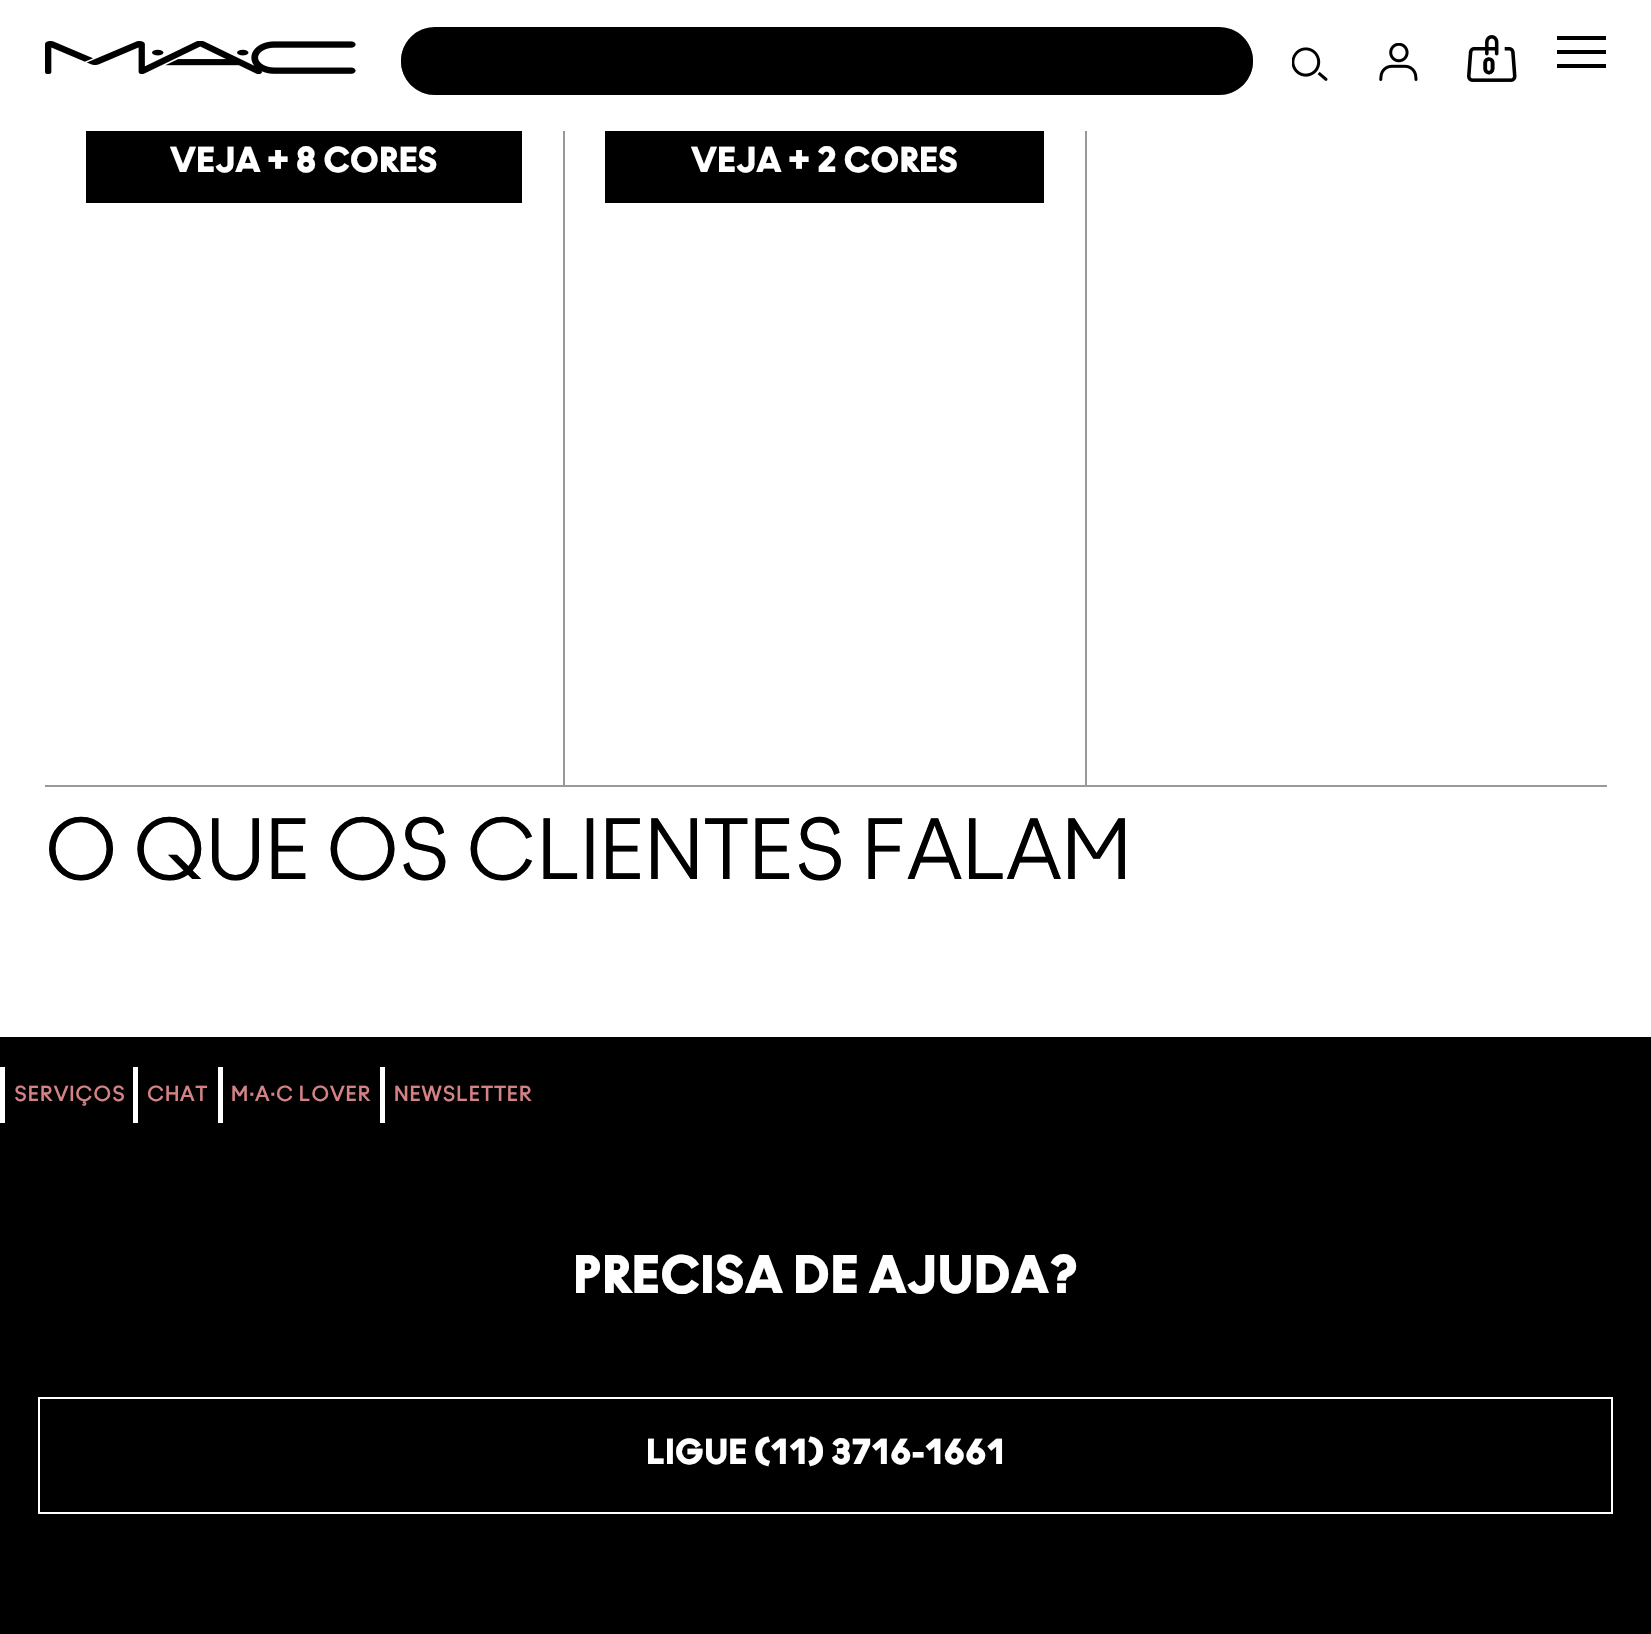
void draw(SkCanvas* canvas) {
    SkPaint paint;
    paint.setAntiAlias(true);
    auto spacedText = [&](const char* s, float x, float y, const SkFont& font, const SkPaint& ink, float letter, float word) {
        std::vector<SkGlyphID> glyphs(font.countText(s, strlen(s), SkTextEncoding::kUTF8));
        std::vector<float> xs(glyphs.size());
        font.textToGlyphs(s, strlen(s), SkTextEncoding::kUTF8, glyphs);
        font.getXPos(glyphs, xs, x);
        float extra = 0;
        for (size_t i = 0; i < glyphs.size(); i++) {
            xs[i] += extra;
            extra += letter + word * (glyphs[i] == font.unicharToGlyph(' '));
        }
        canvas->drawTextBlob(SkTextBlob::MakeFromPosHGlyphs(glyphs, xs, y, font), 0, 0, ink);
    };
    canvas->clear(0xFFFFFFFF);
    canvas->drawImageRect(SkImages::DeferredFromEncodedData(SkData::MakeFromFileName("img1.png")), SkRect::MakeXYWH(45, 41, 311, 33), SkSamplingOptions());
    paint.setColor(0xFF000000);
    canvas->drawRoundRect(SkRect::MakeXYWH(401, 27, 852, 68), 34, 34, paint);
    {
        const SkColor colors[] = {0xE6000000, 0x1A000000};
        const float stops[] = {0, 1};
        const SkPoint ends[] = {{401, 61}, {446, 61}};
        paint.setShader(SkGradientShader::MakeLinear(ends, colors, stops, 2, SkTileMode::kClamp));
        paint.setAlpha(255);
    }
    canvas->drawPath(SkPathBuilder().moveTo(435, 27).lineTo(446, 27).lineTo(446, 95).lineTo(435, 95).cubicTo(416, 95, 401, 80, 401, 61).cubicTo(401, 42, 416, 27, 435, 27).close().detach(), paint);
    {
        const SkColor colors[] = {0xE6000000, 0x1A000000};
        const float stops[] = {0, 1};
        const SkPoint ends[] = {{1253, 61}, {1208, 61}};
        paint.setShader(SkGradientShader::MakeLinear(ends, colors, stops, 2, SkTileMode::kClamp));
        paint.setAlpha(255);
    }
    canvas->drawPath(SkPathBuilder().moveTo(1208, 27).lineTo(1219, 27).cubicTo(1238, 27, 1253, 42, 1253, 61).cubicTo(1253, 80, 1238, 95, 1219, 95).lineTo(1208, 95).close().detach(), paint);
    canvas->drawImageRect(SkImages::DeferredFromEncodedData(SkData::MakeFromFileName("img2.png")), SkRect::MakeXYWH(1292, 47, 36, 34), SkSamplingOptions());
    canvas->drawImageRect(SkImages::DeferredFromEncodedData(SkData::MakeFromFileName("img3.png")), SkRect::MakeXYWH(1379, 43, 39, 38), SkSamplingOptions());
    canvas->drawImageRect(SkImages::DeferredFromEncodedData(SkData::MakeFromFileName("img4.png")), SkRect::MakeXYWH(1467, 35, 50, 47), SkSamplingOptions());
    SkFont font1(fontMgr->matchFamilyStyle("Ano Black", SkFontStyle(900, SkFontStyle::kNormal_Width, SkFontStyle::kUpright_Slant)), 22);
    font1.setSubpixel(true);
    paint.setShader(nullptr);
    paint.setColor(0xFF000000);
    canvas->drawString("0", 1482, 74, font1, paint);
    canvas->drawPath(SkPathBuilder().moveTo(1557, 36).lineTo(1606, 36).lineTo(1606, 40).lineTo(1557, 40).close().moveTo(1557, 50).lineTo(1606, 50).lineTo(1606, 54).lineTo(1557, 54).close().moveTo(1557, 64).lineTo(1606, 64).lineTo(1606, 68).lineTo(1557, 68).close().detach(), paint);
    paint.setColor(0xFF999999);
    canvas->drawRect(SkRect::MakeXYWH(45, 785, 1562, 2), paint);
    canvas->drawRect(SkRect::MakeXYWH(563, 131, 2, 654), paint);
    paint.setColor(0xFF000000);
    canvas->drawRect(SkRect::MakeXYWH(86, 131, 436, 72), paint);
    SkFont font2(fontMgr->matchFamilyStyle("Ano Black", SkFontStyle(900, SkFontStyle::kNormal_Width, SkFontStyle::kUpright_Slant)), 33.75f);
    font2.setSubpixel(true);
    paint.setColor(0xFFFFFFFF);
    canvas->drawString("VEJA + 8 CORES", 170, 172, font2, paint);
    paint.setColor(0xFF999999);
    canvas->drawRect(SkRect::MakeXYWH(1085, 131, 2, 654), paint);
    paint.setColor(0xFF000000);
    canvas->drawRect(SkRect::MakeXYWH(605, 131, 439, 72), paint);
    paint.setColor(0xFFFFFFFF);
    canvas->drawString("VEJA + 2 CORES", 691, 172, font2, paint);
    SkFont font3(fontMgr->matchFamilyStyle("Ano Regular", SkFontStyle::Normal()), 81);
    font3.setSubpixel(true);
    paint.setColor(0xFF000000);
    canvas->drawString("O QUE OS CLIENTES FALAM", 45, 879, font3, paint);
    canvas->drawRect(SkRect::MakeXYWH(0, 1037, 1651, 597), paint);
    paint.setColor(0xFFFFFFFF);
    canvas->drawRect(SkRect::MakeXYWH(0, 1067, 5, 56), paint);
    SkFont font4(fontMgr->matchFamilyStyle("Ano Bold", SkFontStyle::Bold()), 20.25f);
    font4.setSubpixel(true);
    paint.setColor(0xFFD48286);
    spacedText("SERVIÇOS", 14, 1101, font4, paint, 0.75f, 0);
    paint.setColor(0xFFFFFFFF);
    canvas->drawRect(SkRect::MakeXYWH(133, 1067, 5, 56), paint);
    paint.setColor(0xFFD48286);
    spacedText("CHAT", 147, 1101, font4, paint, 0.75f, 0);
    paint.setColor(0xFFFFFFFF);
    canvas->drawRect(SkRect::MakeXYWH(218, 1067, 5, 56), paint);
    paint.setColor(0xFFD48286);
    spacedText("M", 231, 1101, font4, paint, 0.75f, 0);
    SkFont font5(fontMgr->matchFamilyStyle("Liberation Sans", SkFontStyle::Bold()), 20.25f);
    font5.setSubpixel(true);
    spacedText("∙", 249, 1101, font5, paint, 0.75f, 0);
    spacedText("A", 255, 1101, font4, paint, 0.75f, 0);
    spacedText("∙", 270, 1101, font5, paint, 0.75f, 0);
    spacedText("C LOVER", 276, 1101, font4, paint, 0.75f, 0);
    paint.setColor(0xFFFFFFFF);
    canvas->drawRect(SkRect::MakeXYWH(380, 1067, 5, 56), paint);
    paint.setColor(0xFFD48286);
    spacedText("NEWSLETTER", 394, 1101, font4, paint, 0.75f, 0);
    SkFont font6(fontMgr->matchFamilyStyle("Ano Black", SkFontStyle(900, SkFontStyle::kNormal_Width, SkFontStyle::kUpright_Slant)), 50.6f);
    font6.setSubpixel(true);
    paint.setColor(0xFFFFFFFF);
    canvas->drawString("PRECISA DE AJUDA?", 573, 1293, font6, paint);
    paint.setStyle(SkPaint::kStroke_Style);
    paint.setStrokeWidth(2);
    canvas->drawRect(SkRect::MakeXYWH(39, 1398, 1573, 115), paint);
    paint.setStyle(SkPaint::kFill_Style);
    canvas->drawString("LIGUE (11) 3716-1661", 646, 1464, font2, paint);
}
